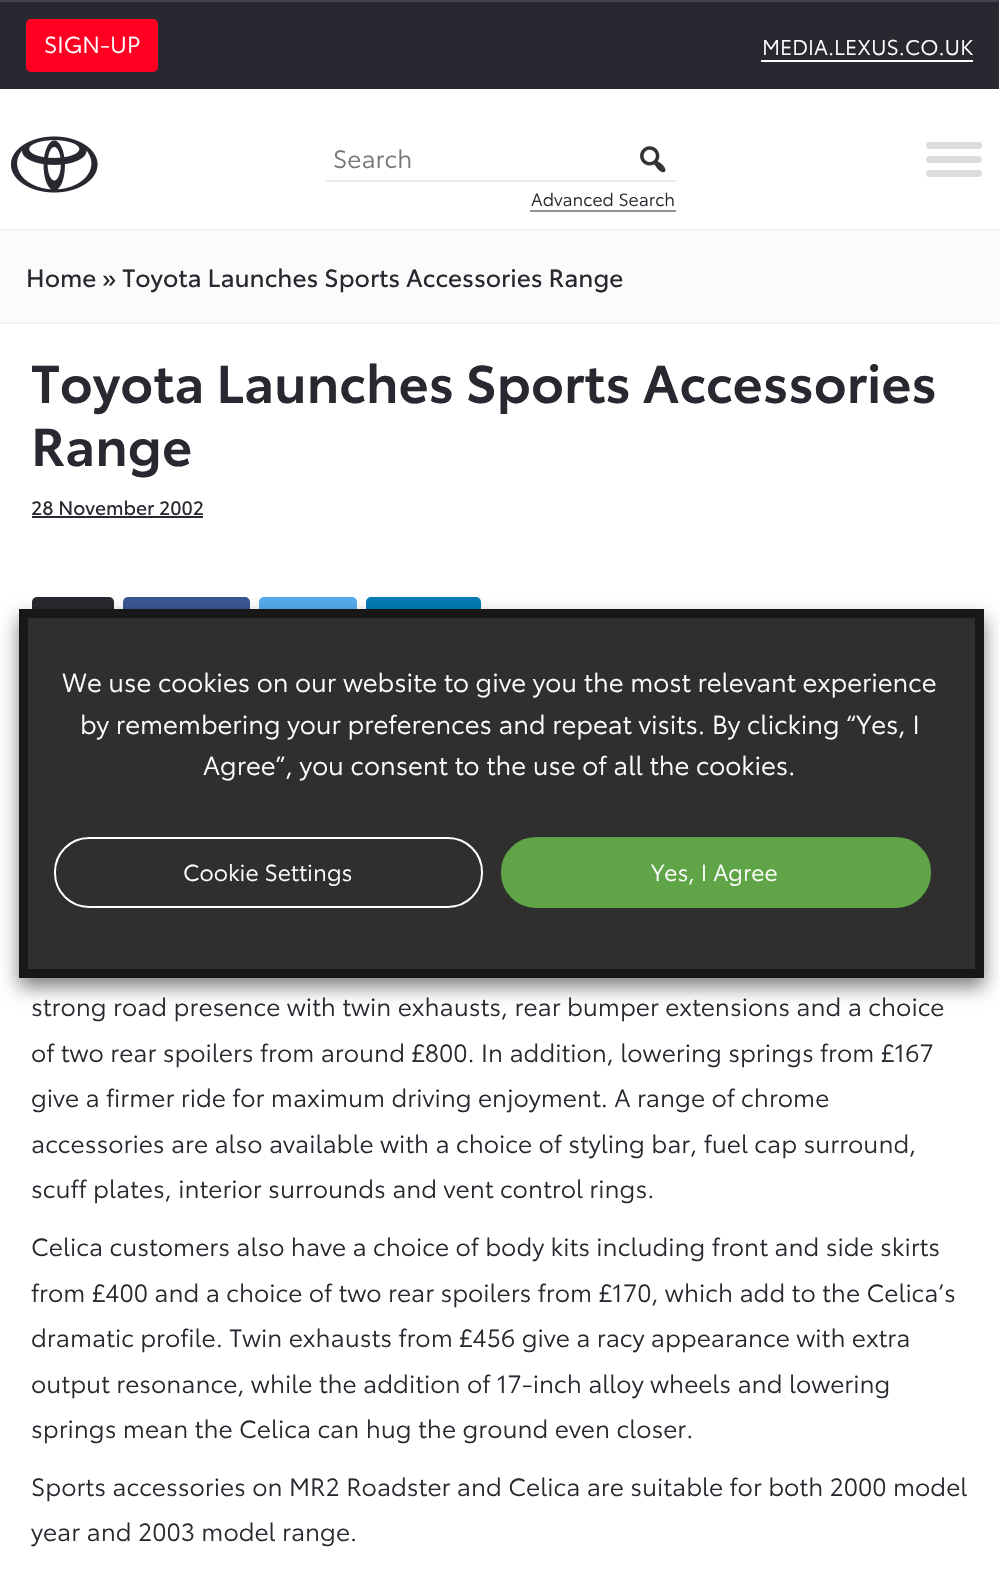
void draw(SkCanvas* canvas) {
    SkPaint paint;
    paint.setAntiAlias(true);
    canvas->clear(0xFFFFFFFF);
    paint.setColor(0xFF282830);
    canvas->drawRect(SkRect::MakeXYWH(0, 2, 999, 87), paint);
    paint.setColor(0xFF434350);
    canvas->drawRect(SkRect::MakeXYWH(0, 0, 999, 2), paint);
    paint.setColor(0xFFFF0022);
    canvas->drawRoundRect(SkRect::MakeXYWH(26, 19, 132, 53), 5, 5, paint);
    SkFont font1(fontMgr->matchFamilyStyle("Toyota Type", SkFontStyle::Normal()), 22.75f);
    font1.setSubpixel(true);
    paint.setColor(0xFFFFFFFF);
    canvas->drawString("SIGN-UP", 44, 53, font1, paint);
    SkFont font2(fontMgr->matchFamilyStyle("Toyota Type", SkFontStyle::Normal()), 21);
    font2.setSubpixel(true);
    canvas->drawString("MEDIA.LEXUS.CO.UK", 762, 55, font2, paint);
    canvas->drawRect(SkRect::MakeXYWH(761, 60, 212, 2), paint);
    paint.setColor(0xFFF2F2F2);
    canvas->drawRect(SkRect::MakeXYWH(0, 229, 999, 2), paint);
    canvas->drawImageRect(SkImages::DeferredFromEncodedData(SkData::MakeFromFileName("img1.png")), SkRect::MakeXYWH(11, 136, 87, 57), SkSamplingOptions());
    paint.setColor(0xFFEAEAEA);
    canvas->drawRect(SkRect::MakeXYWH(326, 180, 350, 2), paint);
    SkFont font3(fontMgr->matchFamilyStyle("Toyota Type", SkFontStyle::Normal()), 24.5f);
    font3.setSubpixel(true);
    paint.setColor(0xFF757575);
    canvas->drawString("Search", 333, 168, font3, paint);
    canvas->drawImageRect(SkImages::DeferredFromEncodedData(SkData::MakeFromFileName("img2.png")), SkRect::MakeXYWH(640, 146, 26, 27), SkSamplingOptions());
    SkFont font4(fontMgr->matchFamilyStyle("Toyota Type", SkFontStyle::Normal()), 17.5f);
    font4.setSubpixel(true);
    paint.setColor(0xFF282830);
    canvas->drawString("Advanced Search", 531, 206, font4, paint);
    paint.setColor(0xFF949498);
    canvas->drawRect(SkRect::MakeXYWH(530, 210, 146, 2), paint);
    paint.setColor(0xFFDDDDDD);
    canvas->drawRoundRect(SkRect::MakeXYWH(926, 142, 56, 7), 3.5f, 3.5f, paint);
    canvas->drawRoundRect(SkRect::MakeXYWH(926, 156, 56, 7), 3.5f, 3.5f, paint);
    canvas->drawRoundRect(SkRect::MakeXYWH(926, 170, 56, 7), 3.5f, 3.5f, paint);
    paint.setColor(0xFFFBFBFB);
    canvas->drawRect(SkRect::MakeXYWH(0, 231, 999, 91), paint);
    paint.setColor(0xFFF2F2F2);
    canvas->drawRect(SkRect::MakeXYWH(0, 322, 999, 2), paint);
    SkFont font5(fontMgr->matchFamilyStyle("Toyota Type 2", SkFontStyle::Normal()), 24.5f);
    font5.setSubpixel(true);
    paint.setColor(0xFF282830);
    canvas->drawString("Home » Toyota Launches Sports Accessories Range", 26, 287, font5, paint);
    SkFont font6(fontMgr->matchFamilyStyle("Toyota Type", SkFontStyle(600, SkFontStyle::kNormal_Width, SkFontStyle::kUpright_Slant)), 52.5f);
    font6.setSubpixel(true);
    canvas->drawString("Toyota Launches Sports Accessories", 31, 403, font6, paint);
    canvas->drawString("Range", 31, 466, font6, paint);
    SkFont font7(fontMgr->matchFamilyStyle("Toyota Type 2", SkFontStyle::Normal()), 19.25f);
    font7.setSubpixel(true);
    canvas->drawString("28 November 2002", 31, 515, font7, paint);
    canvas->drawRect(SkRect::MakeXYWH(32, 516, 171, 2), paint);
    canvas->drawRoundRect(SkRect::MakeXYWH(32, 597, 82, 42), 5, 5, paint);
    paint.setColor(0xFF3A5795);
    canvas->drawRoundRect(SkRect::MakeXYWH(123, 597, 127, 42), 5, 5, paint);
    paint.setColor(0xFF55ACEE);
    canvas->drawRoundRect(SkRect::MakeXYWH(259, 597, 98, 42), 5, 5, paint);
    paint.setColor(0xFF007BB6);
    canvas->drawRoundRect(SkRect::MakeXYWH(366, 597, 115, 42), 5, 5, paint);
    paint.setColor(0xFF282830);
    canvas->drawString("strong road presence with twin exhausts, rear bumper extensions and a choice", 31, 1016, font3, paint);
    canvas->drawString("of two rear spoilers from around £800. In addition, lowering springs from £167", 31, 1062, font3, paint);
    canvas->drawString("give a firmer ride for maximum driving enjoyment. A range of chrome", 31, 1107, font3, paint);
    canvas->drawString("accessories are also available with a choice of styling bar, fuel cap surround,", 31, 1153, font3, paint);
    canvas->drawString("scuff plates, interior surrounds and vent control rings.", 31, 1198, font3, paint);
    canvas->drawString("Celica customers also have a choice of body kits including front and side skirts", 31, 1256, font3, paint);
    canvas->drawString("from £400 and a choice of two rear spoilers from £170, which add to the Celica’s", 31, 1302, font3, paint);
    canvas->drawString("dramatic profile. Twin exhausts from £456 give a racy appearance with extra", 31, 1347, font3, paint);
    canvas->drawString("output resonance, while the addition of 17-inch alloy wheels and lowering", 31, 1393, font3, paint);
    canvas->drawString("springs mean the Celica can hug the ground even closer.", 31, 1438, font3, paint);
    canvas->drawString("Sports accessories on MR2 Roadster and Celica are suitable for both 2000 model", 31, 1496, font3, paint);
    canvas->drawString("year and 2003 model range.", 31, 1541, font3, paint);
    paint.setColor(0x80000000);
    paint.setMaskFilter(SkMaskFilter::MakeBlur(kNormal_SkBlurStyle, 9));
    canvas->drawRect(SkRect::MakeXYWH(19, 618, 965, 369), paint);
    paint.setMaskFilter(nullptr);
    paint.setColor(0xFF2F2F2F);
    canvas->drawRect(SkRect::MakeXYWH(23.5f, 613.5f, 956, 360), paint);
    paint.setStyle(SkPaint::kStroke_Style);
    paint.setStrokeWidth(9);
    paint.setColor(0xFF181818);
    canvas->drawRect(SkRect::MakeXYWH(23.5f, 613.5f, 956, 360), paint);
    SkFont font8(fontMgr->matchFamilyStyle("Toyota Type", SkFontStyle::Normal()), 25.65f);
    font8.setSubpixel(true);
    paint.setStyle(SkPaint::kFill_Style);
    paint.setColor(0xFFFFFFFF);
    canvas->drawString("We use cookies on our website to give you the most relevant experience", 62, 692, font8, paint);
    canvas->drawString("by remembering your preferences and repeat visits. By clicking “Yes, I", 80, 734, font8, paint);
    canvas->drawString("Agree”, you consent to the use of all the cookies.", 203, 775, font8, paint);
    paint.setStyle(SkPaint::kStroke_Style);
    paint.setStrokeWidth(2);
    canvas->drawRoundRect(SkRect::MakeXYWH(55, 838, 427, 69), 34, 34, paint);
    paint.setStyle(SkPaint::kFill_Style);
    canvas->drawString("Cookie Settings", 183, 881, font1, paint);
    paint.setColor(0xFF5FA446);
    canvas->drawRoundRect(SkRect::MakeXYWH(502, 838, 428, 69), 34, 34, paint);
    paint.setStyle(SkPaint::kStroke_Style);
    canvas->drawRoundRect(SkRect::MakeXYWH(502, 838, 428, 69), 34, 34, paint);
    paint.setStyle(SkPaint::kFill_Style);
    paint.setColor(0xFFFFFFFF);
    canvas->drawString("Yes, I Agree", 651, 881, font1, paint);
}
